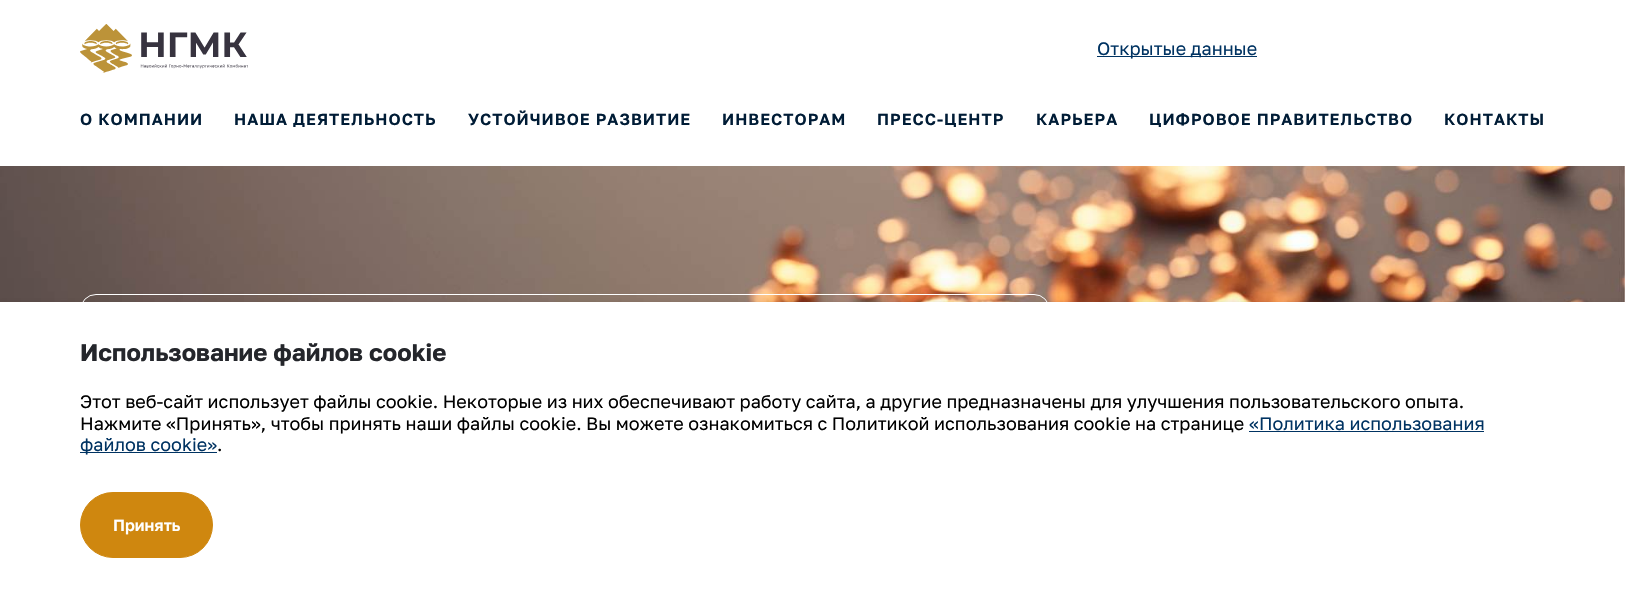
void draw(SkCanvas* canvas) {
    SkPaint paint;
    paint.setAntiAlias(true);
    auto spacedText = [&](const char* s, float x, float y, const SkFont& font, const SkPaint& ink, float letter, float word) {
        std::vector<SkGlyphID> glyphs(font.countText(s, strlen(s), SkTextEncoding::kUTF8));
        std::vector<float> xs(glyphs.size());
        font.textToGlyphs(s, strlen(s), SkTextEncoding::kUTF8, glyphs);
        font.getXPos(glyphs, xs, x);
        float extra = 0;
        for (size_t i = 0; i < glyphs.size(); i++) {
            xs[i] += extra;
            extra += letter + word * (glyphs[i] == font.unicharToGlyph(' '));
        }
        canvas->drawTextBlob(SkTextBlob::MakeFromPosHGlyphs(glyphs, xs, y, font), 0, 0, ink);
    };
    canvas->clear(0xFFFFFFFF);
    canvas->drawImageRect(SkImages::DeferredFromEncodedData(SkData::MakeFromFileName("img1.png")), SkRect::MakeXYWH(80, 24, 168, 49), SkSamplingOptions());
    paint.setColor(0xFF003362);
    canvas->drawRect(SkRect::MakeXYWH(1097, 56, 160, 1), paint);
    SkFont font1(fontMgr->matchFamilyStyle("Golos Text", SkFontStyle::Normal()), 18);
    font1.setSubpixel(true);
    canvas->drawString("Открытые данные", 1097, 55, font1, paint);
    SkFont font2(fontMgr->matchFamilyStyle("Golos Text", SkFontStyle(600, SkFontStyle::kNormal_Width, SkFontStyle::kUpright_Slant)), 16);
    font2.setSubpixel(true);
    paint.setColor(0xFF001C36);
    spacedText("О КОМПАНИИ", 80, 125, font2, paint, 1, 0);
    spacedText("НАША ДЕЯТЕЛЬНОСТЬ", 234, 125, font2, paint, 1, 0);
    spacedText("УСТОЙЧИВОЕ РАЗВИТИЕ", 468, 125, font2, paint, 1, 0);
    spacedText("ИНВЕСТОРАМ", 722, 125, font2, paint, 1, 0);
    spacedText("ПРЕСС-ЦЕНТР", 877, 125, font2, paint, 1, 0);
    spacedText("КАРЬЕРА", 1036, 125, font2, paint, 1, 0);
    spacedText("ЦИФРОВОЕ ПРАВИТЕЛЬСТВО", 1149, 125, font2, paint, 1, 0);
    spacedText("КОНТАКТЫ", 1444, 125, font2, paint, 1, 0);
    canvas->drawImageRect(SkImages::DeferredFromEncodedData(SkData::MakeFromFileName("img2.png")), SkRect::MakeXYWH(0, 166, 1625, 136), SkSamplingOptions());
    paint.setStyle(SkPaint::kStroke_Style);
    paint.setStrokeWidth(1);
    paint.setColor(0xFFFFFFFF);
    canvas->drawRoundRect(SkRect::MakeXYWH(80.5f, 294.5f, 969, 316), 15.5f, 15.5f, paint);
    paint.setStyle(SkPaint::kFill_Style);
    paint.setColor(0x26000000);
    paint.setMaskFilter(SkMaskFilter::MakeBlur(kNormal_SkBlurStyle, 3));
    canvas->drawRect(SkRect::MakeXYWH(0, 304, 1625, 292), paint);
    paint.setMaskFilter(nullptr);
    paint.setColor(0xFFFFFFFF);
    canvas->drawRect(SkRect::MakeXYWH(0, 302, 1625, 292), paint);
    SkFont font3(fontMgr->matchFamilyStyle("Golos Text", SkFontStyle::Bold()), 24);
    font3.setSubpixel(true);
    paint.setColor(0xFF24262B);
    canvas->drawString("Использование файлов cookie", 80, 361, font3, paint);
    paint.setColor(0xFF000000);
    canvas->drawString("Этот веб-сайт использует файлы cookie. Некоторые из них обеспечивают работу сайта, а другие предназначены для улучшения пользовательского опыта.", 80, 408, font1, paint);
    canvas->drawString("Нажмите «Принять», чтобы принять наши файлы cookie. Вы можете ознакомиться с Политикой использования cookie на странице", 80, 430, font1, paint);
    paint.setColor(0xFF003362);
    canvas->drawString("«Политика использования", 1249, 430, font1, paint);
    canvas->drawRect(SkRect::MakeXYWH(1249, 431, 235, 1), paint);
    canvas->drawRect(SkRect::MakeXYWH(80, 452, 137, 1), paint);
    canvas->drawString("файлов cookie»", 80, 451, font1, paint);
    paint.setColor(0xFF000000);
    canvas->drawString(".", 217, 451, font1, paint);
    paint.setColor(0xFFCF870F);
    canvas->drawRoundRect(SkRect::MakeXYWH(80.5f, 492.5f, 132, 65), 32.5f, 32.5f, paint);
    paint.setStyle(SkPaint::kStroke_Style);
    canvas->drawRoundRect(SkRect::MakeXYWH(80.5f, 492.5f, 132, 65), 32.5f, 32.5f, paint);
    paint.setStyle(SkPaint::kFill_Style);
    paint.setColor(0xFFFFFFFF);
    canvas->drawString("Принять", 113, 531, font2, paint);
}
